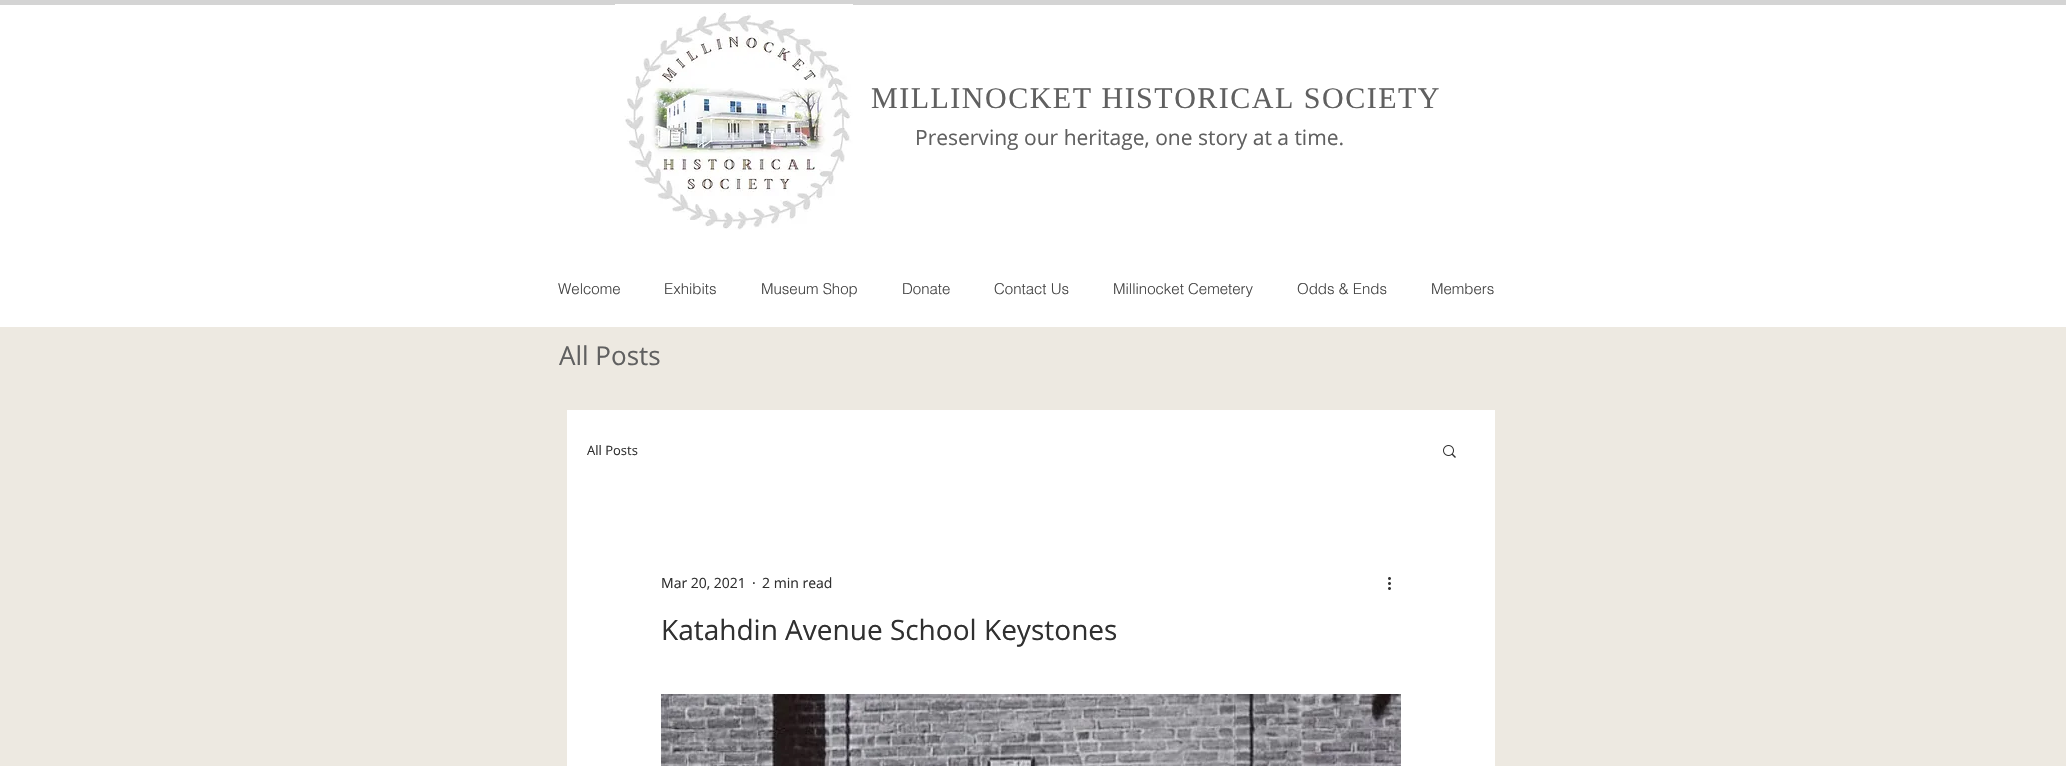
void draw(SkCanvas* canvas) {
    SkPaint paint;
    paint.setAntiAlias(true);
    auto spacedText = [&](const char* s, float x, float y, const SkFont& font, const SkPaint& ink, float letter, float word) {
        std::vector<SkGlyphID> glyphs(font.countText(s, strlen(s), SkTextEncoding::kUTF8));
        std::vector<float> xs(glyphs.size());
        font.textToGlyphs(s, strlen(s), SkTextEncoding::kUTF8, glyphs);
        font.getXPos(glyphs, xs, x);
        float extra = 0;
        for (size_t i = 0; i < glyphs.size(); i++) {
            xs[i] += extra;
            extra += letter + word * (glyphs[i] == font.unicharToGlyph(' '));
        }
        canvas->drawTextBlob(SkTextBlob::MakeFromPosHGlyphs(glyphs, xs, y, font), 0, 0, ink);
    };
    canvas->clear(0xFFEDE9E1);
    paint.setColor(0xFFFFFFFF);
    canvas->drawRect(SkRect::MakeXYWH(0, 5, 2066, 322), paint);
    paint.setColor(0xFFD4D4D4);
    canvas->drawRect(SkRect::MakeXYWH(0, 0, 2066, 5), paint);
    canvas->drawImageRect(SkImages::DeferredFromEncodedData(SkData::MakeFromFileName("img1.png")), SkRect::MakeXYWH(615, 4, 238, 226), SkSamplingOptions());
    SkFont font1(fontMgr->matchFamilyStyle("Liberation Serif", SkFontStyle::Normal()), 30);
    font1.setSubpixel(true);
    paint.setColor(0xFF606060);
    spacedText("MILLINOCKET HISTORICAL SOCIETY", 871, 108, font1, paint, 1.5f, 0);
    SkFont font2(fontMgr->matchFamilyStyle("Open Sans", SkFontStyle::Normal()), 21);
    font2.setSubpixel(true);
    canvas->drawString("Preserving our heritage, one story at a time.", 915, 145, font2, paint);
    SkFont font3(fontMgr->matchFamilyStyle("helvetica", SkFontStyle(300, SkFontStyle::kNormal_Width, SkFontStyle::kUpright_Slant)), 15);
    font3.setSubpixel(true);
    paint.setColor(0xFF444444);
    canvas->drawString("Welcome", 558, 294, font3, paint);
    canvas->drawString("Exhibits", 664, 294, font3, paint);
    canvas->drawString("Museum Shop", 761, 294, font3, paint);
    canvas->drawString("Donate", 902, 294, font3, paint);
    canvas->drawString("Contact Us", 994, 294, font3, paint);
    canvas->drawString("Millinocket Cemetery", 1113, 294, font3, paint);
    canvas->drawString("Odds & Ends", 1297, 294, font3, paint);
    canvas->drawString("Members", 1431, 294, font3, paint);
    SkFont font4(fontMgr->matchFamilyStyle("Open Sans", SkFontStyle::Normal()), 26);
    font4.setSubpixel(true);
    paint.setColor(0xFF606060);
    canvas->drawString("All Posts", 559, 365, font4, paint);
    paint.setColor(0xFFFFFFFF);
    canvas->drawRect(SkRect::MakeXYWH(567, 410, 928, 356), paint);
    SkFont font5(fontMgr->matchFamilyStyle("Open Sans", SkFontStyle::Normal()), 13);
    font5.setSubpixel(true);
    paint.setColor(0xFF303030);
    canvas->drawString("All Posts", 587, 455, font5, paint);
    canvas->drawImageRect(SkImages::DeferredFromEncodedData(SkData::MakeFromFileName("img2.png")), SkRect::MakeXYWH(1443, 445, 13, 13), SkSamplingOptions());
    SkFont font6(fontMgr->matchFamilyStyle("Open Sans", SkFontStyle::Normal()), 14);
    font6.setSubpixel(true);
    canvas->drawString("Mar 20, 2021", 661, 588, font6, paint);
    canvas->drawString("·", 752, 588, font6, paint);
    canvas->drawString("2 min read", 762, 588, font6, paint);
    canvas->drawImageRect(SkImages::DeferredFromEncodedData(SkData::MakeFromFileName("img3.png")), SkRect::MakeXYWH(1388, 577, 3, 13), SkSamplingOptions());
    SkFont font7(fontMgr->matchFamilyStyle("Open Sans", SkFontStyle::Normal()), 28);
    font7.setSubpixel(true);
    canvas->drawString("Katahdin Avenue School Keystones", 661, 640, font7, paint);
    canvas->drawImageRect(SkImages::DeferredFromEncodedData(SkData::MakeFromFileName("img4.png")), SkRect::MakeXYWH(661, 694, 740, 72), SkSamplingOptions());
}
